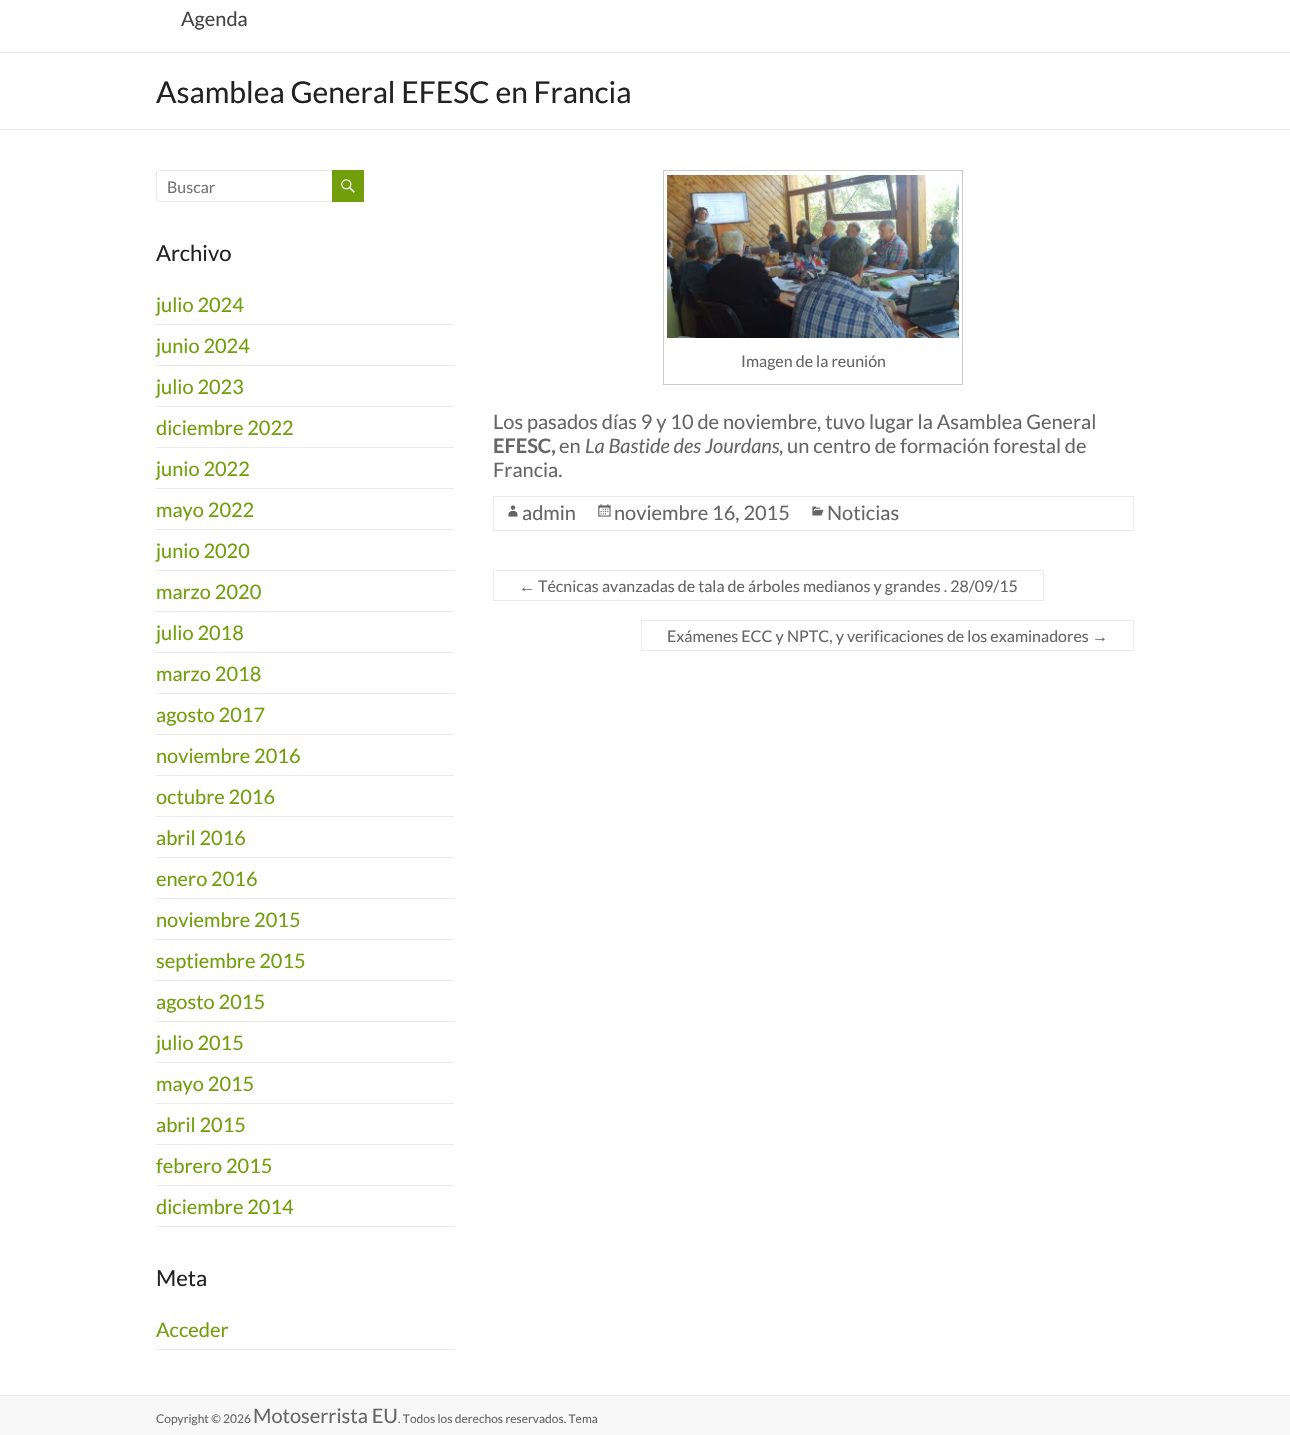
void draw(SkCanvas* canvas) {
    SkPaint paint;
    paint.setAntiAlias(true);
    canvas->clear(0xFFFFFFFF);
    paint.setColor(0xFFEAEAEA);
    canvas->drawRect(SkRect::MakeXYWH(0, 52, 1290, 1), paint);
    SkFont font1(fontMgr->matchFamilyStyle("Lato", SkFontStyle::Normal()), 20);
    font1.setSubpixel(true);
    paint.setColor(0xFF444444);
    canvas->drawString("Agenda", 181, 26, font1, paint);
    paint.setColor(0xFFEAEAEA);
    canvas->drawRect(SkRect::MakeXYWH(0, 129, 1290, 1), paint);
    SkFont font2(fontMgr->matchFamilyStyle("Lato", SkFontStyle::Normal()), 30);
    font2.setSubpixel(true);
    paint.setColor(0xFF222222);
    canvas->drawString("Asamblea General EFESC en Francia", 156, 103, font2, paint);
    paint.setStyle(SkPaint::kStroke_Style);
    paint.setStrokeWidth(1);
    paint.setColor(0xFFEAEAEA);
    canvas->drawRoundRect(SkRect::MakeXYWH(156.5f, 170.5f, 178, 31), 2.5f, 2.5f, paint);
    SkFont font3(fontMgr->matchFamilyStyle("Lato", SkFontStyle::Normal()), 16);
    font3.setSubpixel(true);
    paint.setStyle(SkPaint::kFill_Style);
    paint.setColor(0xFF757575);
    canvas->drawString("Buscar", 167, 193, font3, paint);
    paint.setColor(0xFF719E0B);
    canvas->drawRect(SkRect::MakeXYWH(332, 170, 32, 32), paint);
    canvas->drawImageRect(SkImages::DeferredFromEncodedData(SkData::MakeFromFileName("img1.png")), SkRect::MakeXYWH(341, 179, 14, 14), SkSamplingOptions());
    SkFont font4(fontMgr->matchFamilyStyle("Lato", SkFontStyle::Normal()), 22);
    font4.setSubpixel(true);
    paint.setColor(0xFF222222);
    canvas->drawString("Archivo", 156, 261, font4, paint);
    paint.setColor(0xFFEAEAEA);
    canvas->drawRect(SkRect::MakeXYWH(156, 324, 298, 1), paint);
    paint.setColor(0xFF719E0B);
    canvas->drawString("julio 2024", 156, 312, font1, paint);
    paint.setColor(0xFFEAEAEA);
    canvas->drawRect(SkRect::MakeXYWH(156, 365, 298, 1), paint);
    paint.setColor(0xFF719E0B);
    canvas->drawString("junio 2024", 156, 353, font1, paint);
    paint.setColor(0xFFEAEAEA);
    canvas->drawRect(SkRect::MakeXYWH(156, 406, 298, 1), paint);
    paint.setColor(0xFF719E0B);
    canvas->drawString("julio 2023", 156, 394, font1, paint);
    paint.setColor(0xFFEAEAEA);
    canvas->drawRect(SkRect::MakeXYWH(156, 447, 298, 1), paint);
    paint.setColor(0xFF719E0B);
    canvas->drawString("diciembre 2022", 156, 435, font1, paint);
    paint.setColor(0xFFEAEAEA);
    canvas->drawRect(SkRect::MakeXYWH(156, 488, 298, 1), paint);
    paint.setColor(0xFF719E0B);
    canvas->drawString("junio 2022", 156, 476, font1, paint);
    paint.setColor(0xFFEAEAEA);
    canvas->drawRect(SkRect::MakeXYWH(156, 529, 298, 1), paint);
    paint.setColor(0xFF719E0B);
    canvas->drawString("mayo 2022", 156, 517, font1, paint);
    paint.setColor(0xFFEAEAEA);
    canvas->drawRect(SkRect::MakeXYWH(156, 570, 298, 1), paint);
    paint.setColor(0xFF719E0B);
    canvas->drawString("junio 2020", 156, 558, font1, paint);
    paint.setColor(0xFFEAEAEA);
    canvas->drawRect(SkRect::MakeXYWH(156, 611, 298, 1), paint);
    paint.setColor(0xFF719E0B);
    canvas->drawString("marzo 2020", 156, 599, font1, paint);
    paint.setColor(0xFFEAEAEA);
    canvas->drawRect(SkRect::MakeXYWH(156, 652, 298, 1), paint);
    paint.setColor(0xFF719E0B);
    canvas->drawString("julio 2018", 156, 640, font1, paint);
    paint.setColor(0xFFEAEAEA);
    canvas->drawRect(SkRect::MakeXYWH(156, 693, 298, 1), paint);
    paint.setColor(0xFF719E0B);
    canvas->drawString("marzo 2018", 156, 681, font1, paint);
    paint.setColor(0xFFEAEAEA);
    canvas->drawRect(SkRect::MakeXYWH(156, 734, 298, 1), paint);
    paint.setColor(0xFF719E0B);
    canvas->drawString("agosto 2017", 156, 722, font1, paint);
    paint.setColor(0xFFEAEAEA);
    canvas->drawRect(SkRect::MakeXYWH(156, 775, 298, 1), paint);
    paint.setColor(0xFF719E0B);
    canvas->drawString("noviembre 2016", 156, 763, font1, paint);
    paint.setColor(0xFFEAEAEA);
    canvas->drawRect(SkRect::MakeXYWH(156, 816, 298, 1), paint);
    paint.setColor(0xFF719E0B);
    canvas->drawString("octubre 2016", 156, 804, font1, paint);
    paint.setColor(0xFFEAEAEA);
    canvas->drawRect(SkRect::MakeXYWH(156, 857, 298, 1), paint);
    paint.setColor(0xFF719E0B);
    canvas->drawString("abril 2016", 156, 845, font1, paint);
    paint.setColor(0xFFEAEAEA);
    canvas->drawRect(SkRect::MakeXYWH(156, 898, 298, 1), paint);
    paint.setColor(0xFF719E0B);
    canvas->drawString("enero 2016", 156, 886, font1, paint);
    paint.setColor(0xFFEAEAEA);
    canvas->drawRect(SkRect::MakeXYWH(156, 939, 298, 1), paint);
    paint.setColor(0xFF719E0B);
    canvas->drawString("noviembre 2015", 156, 927, font1, paint);
    paint.setColor(0xFFEAEAEA);
    canvas->drawRect(SkRect::MakeXYWH(156, 980, 298, 1), paint);
    paint.setColor(0xFF719E0B);
    canvas->drawString("septiembre 2015", 156, 968, font1, paint);
    paint.setColor(0xFFEAEAEA);
    canvas->drawRect(SkRect::MakeXYWH(156, 1021, 298, 1), paint);
    paint.setColor(0xFF719E0B);
    canvas->drawString("agosto 2015", 156, 1009, font1, paint);
    paint.setColor(0xFFEAEAEA);
    canvas->drawRect(SkRect::MakeXYWH(156, 1062, 298, 1), paint);
    paint.setColor(0xFF719E0B);
    canvas->drawString("julio 2015", 156, 1050, font1, paint);
    paint.setColor(0xFFEAEAEA);
    canvas->drawRect(SkRect::MakeXYWH(156, 1103, 298, 1), paint);
    paint.setColor(0xFF719E0B);
    canvas->drawString("mayo 2015", 156, 1091, font1, paint);
    paint.setColor(0xFFEAEAEA);
    canvas->drawRect(SkRect::MakeXYWH(156, 1144, 298, 1), paint);
    paint.setColor(0xFF719E0B);
    canvas->drawString("abril 2015", 156, 1132, font1, paint);
    paint.setColor(0xFFEAEAEA);
    canvas->drawRect(SkRect::MakeXYWH(156, 1185, 298, 1), paint);
    paint.setColor(0xFF719E0B);
    canvas->drawString("febrero 2015", 156, 1173, font1, paint);
    paint.setColor(0xFFEAEAEA);
    canvas->drawRect(SkRect::MakeXYWH(156, 1226, 298, 1), paint);
    paint.setColor(0xFF719E0B);
    canvas->drawString("diciembre 2014", 156, 1214, font1, paint);
    paint.setColor(0xFF222222);
    canvas->drawString("Meta", 156, 1286, font4, paint);
    paint.setColor(0xFFEAEAEA);
    canvas->drawRect(SkRect::MakeXYWH(156, 1349, 298, 1), paint);
    paint.setColor(0xFF719E0B);
    canvas->drawString("Acceder", 156, 1337, font1, paint);
    paint.setStyle(SkPaint::kStroke_Style);
    paint.setColor(0xFFCCCCCC);
    canvas->drawRect(SkRect::MakeXYWH(663.5f, 170.5f, 299, 214), paint);
    canvas->drawImageRect(SkImages::DeferredFromEncodedData(SkData::MakeFromFileName("img2.png")), SkRect::MakeXYWH(667, 175, 292, 163), SkSamplingOptions());
    paint.setStyle(SkPaint::kFill_Style);
    paint.setColor(0xFF666666);
    canvas->drawString("Imagen de la reunión", 741, 367, font3, paint);
    canvas->drawString("Los pasados días 9 y 10 de noviembre, tuvo lugar la Asamblea General", 493, 429, font1, paint);
    SkFont font5(fontMgr->matchFamilyStyle("Lato", SkFontStyle::Bold()), 20);
    font5.setSubpixel(true);
    canvas->drawString("EFESC,", 493, 453, font5, paint);
    canvas->drawString("en", 559, 453, font1, paint);
    SkFont font6(fontMgr->matchFamilyStyle("Lato", SkFontStyle::Italic()), 20);
    font6.setSubpixel(true);
    canvas->drawString("La Bastide des Jourdans", 585, 453, font6, paint);
    canvas->drawString(", un centro de formación forestal de", 779, 453, font1, paint);
    canvas->drawString("Francia.", 493, 477, font1, paint);
    paint.setStyle(SkPaint::kStroke_Style);
    paint.setColor(0xFFEAEAEA);
    canvas->drawRect(SkRect::MakeXYWH(493.5f, 496.5f, 640, 34), paint);
    canvas->drawImageRect(SkImages::DeferredFromEncodedData(SkData::MakeFromFileName("img3.png")), SkRect::MakeXYWH(508, 505, 10, 12), SkSamplingOptions());
    paint.setStyle(SkPaint::kFill_Style);
    paint.setColor(0xFF666666);
    canvas->drawString("admin", 522, 520, font1, paint);
    canvas->drawImageRect(SkImages::DeferredFromEncodedData(SkData::MakeFromFileName("img4.png")), SkRect::MakeXYWH(598, 504, 13, 13), SkSamplingOptions());
    canvas->drawString("noviembre 16, 2015", 614, 520, font1, paint);
    canvas->drawImageRect(SkImages::DeferredFromEncodedData(SkData::MakeFromFileName("img5.png")), SkRect::MakeXYWH(812, 506, 12, 10), SkSamplingOptions());
    canvas->drawString("Noticias", 827, 520, font1, paint);
    SkFont font7(fontMgr->matchFamilyStyle("Liberation Sans", SkFontStyle::Normal()), 16);
    font7.setSubpixel(true);
    canvas->drawString("←", 519, 592, font7, paint);
    paint.setColor(0xFFEAEAEA);
    canvas->drawRect(SkRect::MakeXYWH(493, 600, 42, 1), paint);
    canvas->drawRect(SkRect::MakeXYWH(493, 570, 551, 1), paint);
    canvas->drawRect(SkRect::MakeXYWH(493, 570, 1, 31), paint);
    canvas->drawRect(SkRect::MakeXYWH(1043, 570, 1, 31), paint);
    canvas->drawRect(SkRect::MakeXYWH(535, 600, 509, 1), paint);
    paint.setColor(0xFF666666);
    canvas->drawString("Técnicas avanzadas de tala de árboles medianos y grandes . 28/09/15", 538, 592, font3, paint);
    canvas->drawString("Exámenes ECC y NPTC, y verificaciones de los examinadores", 667, 642, font3, paint);
    paint.setColor(0xFFEAEAEA);
    canvas->drawRect(SkRect::MakeXYWH(641, 620, 493, 1), paint);
    canvas->drawRect(SkRect::MakeXYWH(641, 650, 451, 1), paint);
    canvas->drawRect(SkRect::MakeXYWH(641, 620, 1, 31), paint);
    paint.setColor(0xFF666666);
    canvas->drawString("→", 1092, 642, font7, paint);
    paint.setColor(0xFFEAEAEA);
    canvas->drawRect(SkRect::MakeXYWH(1133, 620, 1, 31), paint);
    canvas->drawRect(SkRect::MakeXYWH(1092, 650, 42, 1), paint);
    paint.setColor(0xFFF8F8F8);
    canvas->drawRect(SkRect::MakeXYWH(0, 1396, 1290, 39), paint);
    paint.setColor(0xFFEAEAEA);
    canvas->drawRect(SkRect::MakeXYWH(0, 1395, 1290, 1), paint);
    SkFont font8(fontMgr->matchFamilyStyle("Lato", SkFontStyle::Normal()), 12);
    font8.setSubpixel(true);
    paint.setColor(0xFF666666);
    canvas->drawString("Copyright © 2026", 156, 1423, font8, paint);
    canvas->drawString("Motoserrista EU", 253, 1423, font1, paint);
    canvas->drawString(". Todos los derechos reservados. Tema", 398, 1423, font8, paint);
}
